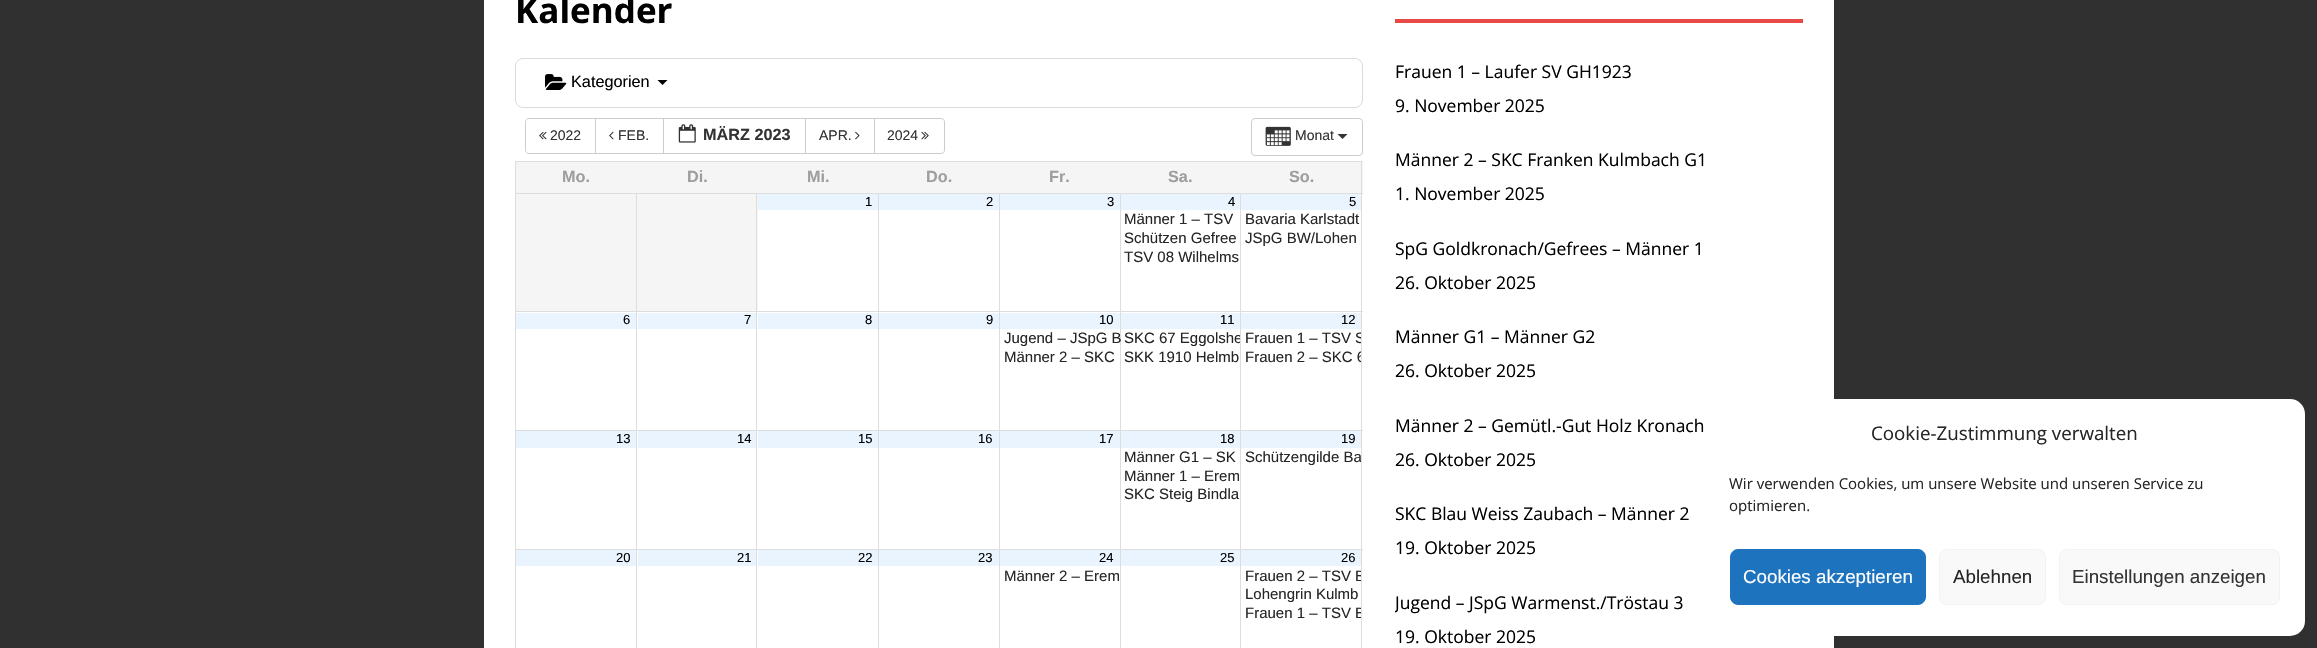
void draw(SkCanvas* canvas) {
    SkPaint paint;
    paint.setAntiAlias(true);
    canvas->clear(0xFF303030);
    paint.setColor(0xFFFFFFFF);
    canvas->drawRect(SkRect::MakeXYWH(484, 0, 1350, 648), paint);
    SkFont font1(fontMgr->matchFamilyStyle("Open Sans", SkFontStyle::Bold()), 35);
    font1.setSubpixel(true);
    paint.setColor(0xFF000000);
    canvas->drawString("Kalender", 515, 23, font1, paint);
    paint.setStyle(SkPaint::kStroke_Style);
    paint.setStrokeWidth(1);
    paint.setColor(0xFFDBDBDB);
    canvas->drawRoundRect(SkRect::MakeXYWH(515.5f, 58.5f, 847, 49), 7.5f, 7.5f, paint);
    canvas->drawImageRect(SkImages::DeferredFromEncodedData(SkData::MakeFromFileName("img1.png")), SkRect::MakeXYWH(545, 74, 22, 16), SkSamplingOptions());
    SkFont font2(fontMgr->matchFamilyStyle("Liberation Sans", SkFontStyle::Normal()), 16.25f);
    font2.setSubpixel(true);
    paint.setStyle(SkPaint::kFill_Style);
    paint.setColor(0xFF000000);
    canvas->drawString("Kategorien", 571, 87, font2, paint);
    canvas->drawPath(SkPathBuilder().moveTo(657.5f, 80).lineTo(667.5f, 80).lineTo(662.5f, 85).close().detach(), paint);
    paint.setStyle(SkPaint::kStroke_Style);
    paint.setColor(0xFFCCCCCC);
    canvas->drawPath(SkPathBuilder().moveTo(529, 118.5f).lineTo(595.5f, 118.5f).lineTo(595.5f, 153.5f).lineTo(529, 153.5f).cubicTo(527, 153.5f, 525.5f, 152, 525.5f, 150).lineTo(525.5f, 122).cubicTo(525.5f, 120, 527, 118.5f, 529, 118.5f).close().detach(), paint);
    canvas->drawImageRect(SkImages::DeferredFromEncodedData(SkData::MakeFromFileName("img2.png")), SkRect::MakeXYWH(539, 131, 8, 9), SkSamplingOptions());
    SkFont font3(fontMgr->matchFamilyStyle("Liberation Sans", SkFontStyle::Normal()), 14);
    font3.setSubpixel(true);
    paint.setStyle(SkPaint::kFill_Style);
    paint.setColor(0xFF333333);
    canvas->drawString("2022", 550, 140, font3, paint);
    paint.setStyle(SkPaint::kStroke_Style);
    paint.setColor(0xFFCCCCCC);
    canvas->drawRect(SkRect::MakeXYWH(595.5f, 118.5f, 68, 35), paint);
    canvas->drawImageRect(SkImages::DeferredFromEncodedData(SkData::MakeFromFileName("img3.png")), SkRect::MakeXYWH(609, 131, 5, 9), SkSamplingOptions());
    paint.setStyle(SkPaint::kFill_Style);
    paint.setColor(0xFF333333);
    canvas->drawString("FEB.", 618, 140, font3, paint);
    paint.setStyle(SkPaint::kStroke_Style);
    paint.setColor(0xFFCCCCCC);
    canvas->drawRect(SkRect::MakeXYWH(663.5f, 118.5f, 142, 35), paint);
    canvas->drawImageRect(SkImages::DeferredFromEncodedData(SkData::MakeFromFileName("img4.png")), SkRect::MakeXYWH(678, 124, 18, 19), SkSamplingOptions());
    SkFont font4(fontMgr->matchFamilyStyle("Liberation Sans", SkFontStyle::Bold()), 16.25f);
    font4.setSubpixel(true);
    paint.setStyle(SkPaint::kFill_Style);
    paint.setColor(0xFF333333);
    canvas->drawString("MÄRZ 2023", 703, 140, font4, paint);
    paint.setStyle(SkPaint::kStroke_Style);
    paint.setColor(0xFFCCCCCC);
    canvas->drawRect(SkRect::MakeXYWH(805.5f, 118.5f, 69, 35), paint);
    paint.setStyle(SkPaint::kFill_Style);
    paint.setColor(0xFF333333);
    canvas->drawString("APR.", 819, 140, font3, paint);
    canvas->drawImageRect(SkImages::DeferredFromEncodedData(SkData::MakeFromFileName("img5.png")), SkRect::MakeXYWH(855, 131, 5, 9), SkSamplingOptions());
    paint.setColor(0xFFFFFFFF);
    canvas->drawPath(SkPathBuilder().moveTo(874.5f, 118.5f).lineTo(941, 118.5f).cubicTo(943, 118.5f, 944.5f, 120, 944.5f, 122).lineTo(944.5f, 150).cubicTo(944.5f, 152, 943, 153.5f, 941, 153.5f).lineTo(874.5f, 153.5f).close().detach(), paint);
    paint.setStyle(SkPaint::kStroke_Style);
    paint.setColor(0xFFCCCCCC);
    canvas->drawPath(SkPathBuilder().moveTo(874.5f, 118.5f).lineTo(941, 118.5f).cubicTo(943, 118.5f, 944.5f, 120, 944.5f, 122).lineTo(944.5f, 150).cubicTo(944.5f, 152, 943, 153.5f, 941, 153.5f).lineTo(874.5f, 153.5f).close().detach(), paint);
    paint.setStyle(SkPaint::kFill_Style);
    paint.setColor(0xFF333333);
    canvas->drawString("2024", 887, 140, font3, paint);
    canvas->drawImageRect(SkImages::DeferredFromEncodedData(SkData::MakeFromFileName("img6.png")), SkRect::MakeXYWH(921, 131, 8, 9), SkSamplingOptions());
    paint.setStyle(SkPaint::kStroke_Style);
    paint.setColor(0xFFCCCCCC);
    canvas->drawRoundRect(SkRect::MakeXYWH(1251.5f, 118.5f, 111, 37), 3.5f, 3.5f, paint);
    canvas->drawImageRect(SkImages::DeferredFromEncodedData(SkData::MakeFromFileName("img7.png")), SkRect::MakeXYWH(1265, 126, 26, 20), SkSamplingOptions());
    paint.setStyle(SkPaint::kFill_Style);
    paint.setColor(0xFF333333);
    canvas->drawString("Monat", 1295, 140, font3, paint);
    canvas->drawPath(SkPathBuilder().moveTo(1337.5f, 134).lineTo(1347.5f, 134).lineTo(1342.5f, 139).close().detach(), paint);
    paint.setColor(0xFFDDDDDD);
    canvas->drawRect(SkRect::MakeXYWH(515, 161, 848, 1), paint);
    paint.setColor(0xFFF5F5F5);
    canvas->drawRect(SkRect::MakeXYWH(516, 162, 847, 31), paint);
    paint.setColor(0xFFDDDDDD);
    canvas->drawRect(SkRect::MakeXYWH(1361, 161, 1, 487), paint);
    canvas->drawRect(SkRect::MakeXYWH(515, 161, 1, 487), paint);
    paint.setColor(0xFF9E9E9E);
    canvas->drawString("Mo.", 562, 182, font4, paint);
    canvas->drawString("Di.", 687, 182, font4, paint);
    canvas->drawString("Mi.", 807, 182, font4, paint);
    canvas->drawString("Do.", 926, 182, font4, paint);
    canvas->drawString("Fr.", 1049, 182, font4, paint);
    canvas->drawString("Sa.", 1168, 182, font4, paint);
    canvas->drawString("So.", 1289, 182, font4, paint);
    paint.setColor(0xFFF5F5F5);
    canvas->drawRect(SkRect::MakeXYWH(516, 194, 120, 117), paint);
    paint.setColor(0xFFDDDDDD);
    canvas->drawRect(SkRect::MakeXYWH(1240, 193, 123, 1), paint);
    canvas->drawRect(SkRect::MakeXYWH(1240, 311, 123, 1), paint);
    canvas->drawRect(SkRect::MakeXYWH(1240, 430, 123, 1), paint);
    canvas->drawRect(SkRect::MakeXYWH(1240, 549, 123, 1), paint);
    canvas->drawRect(SkRect::MakeXYWH(1240, 549, 1, 99), paint);
    canvas->drawRect(SkRect::MakeXYWH(1120, 549, 121, 1), paint);
    canvas->drawRect(SkRect::MakeXYWH(1240, 430, 1, 120), paint);
    canvas->drawRect(SkRect::MakeXYWH(1120, 430, 121, 1), paint);
    canvas->drawRect(SkRect::MakeXYWH(1240, 311, 1, 120), paint);
    canvas->drawRect(SkRect::MakeXYWH(1120, 311, 121, 1), paint);
    canvas->drawRect(SkRect::MakeXYWH(1240, 193, 1, 120), paint);
    canvas->drawRect(SkRect::MakeXYWH(1120, 193, 121, 1), paint);
    canvas->drawRect(SkRect::MakeXYWH(1120, 549, 1, 99), paint);
    canvas->drawRect(SkRect::MakeXYWH(999, 549, 122, 1), paint);
    canvas->drawRect(SkRect::MakeXYWH(1120, 430, 1, 120), paint);
    canvas->drawRect(SkRect::MakeXYWH(999, 430, 122, 1), paint);
    canvas->drawRect(SkRect::MakeXYWH(1120, 311, 1, 120), paint);
    canvas->drawRect(SkRect::MakeXYWH(999, 311, 122, 1), paint);
    canvas->drawRect(SkRect::MakeXYWH(1120, 193, 1, 120), paint);
    canvas->drawRect(SkRect::MakeXYWH(999, 193, 122, 1), paint);
    canvas->drawRect(SkRect::MakeXYWH(999, 549, 1, 99), paint);
    canvas->drawRect(SkRect::MakeXYWH(878, 549, 122, 1), paint);
    canvas->drawRect(SkRect::MakeXYWH(999, 430, 1, 120), paint);
    canvas->drawRect(SkRect::MakeXYWH(878, 430, 122, 1), paint);
    canvas->drawRect(SkRect::MakeXYWH(999, 311, 1, 120), paint);
    canvas->drawRect(SkRect::MakeXYWH(878, 311, 122, 1), paint);
    canvas->drawRect(SkRect::MakeXYWH(999, 193, 1, 120), paint);
    canvas->drawRect(SkRect::MakeXYWH(878, 193, 122, 1), paint);
    canvas->drawRect(SkRect::MakeXYWH(878, 549, 1, 99), paint);
    canvas->drawRect(SkRect::MakeXYWH(756, 549, 123, 1), paint);
    canvas->drawRect(SkRect::MakeXYWH(878, 430, 1, 120), paint);
    canvas->drawRect(SkRect::MakeXYWH(756, 430, 123, 1), paint);
    canvas->drawRect(SkRect::MakeXYWH(878, 311, 1, 120), paint);
    canvas->drawRect(SkRect::MakeXYWH(756, 311, 123, 1), paint);
    canvas->drawRect(SkRect::MakeXYWH(878, 193, 1, 120), paint);
    canvas->drawRect(SkRect::MakeXYWH(756, 193, 123, 1), paint);
    paint.setColor(0xFFF5F5F5);
    canvas->drawRect(SkRect::MakeXYWH(637, 194, 121, 117), paint);
    paint.setColor(0xFFDDDDDD);
    canvas->drawRect(SkRect::MakeXYWH(756, 549, 1, 99), paint);
    canvas->drawRect(SkRect::MakeXYWH(636, 549, 122, 1), paint);
    canvas->drawRect(SkRect::MakeXYWH(756, 430, 1, 120), paint);
    canvas->drawRect(SkRect::MakeXYWH(636, 430, 122, 1), paint);
    canvas->drawRect(SkRect::MakeXYWH(756, 311, 1, 120), paint);
    canvas->drawRect(SkRect::MakeXYWH(636, 311, 122, 1), paint);
    canvas->drawRect(SkRect::MakeXYWH(756, 193, 1, 120), paint);
    canvas->drawRect(SkRect::MakeXYWH(636, 193, 122, 1), paint);
    canvas->drawRect(SkRect::MakeXYWH(636, 549, 1, 99), paint);
    canvas->drawRect(SkRect::MakeXYWH(515, 549, 123, 1), paint);
    canvas->drawRect(SkRect::MakeXYWH(636, 430, 1, 120), paint);
    canvas->drawRect(SkRect::MakeXYWH(515, 430, 123, 1), paint);
    canvas->drawRect(SkRect::MakeXYWH(636, 311, 1, 120), paint);
    canvas->drawRect(SkRect::MakeXYWH(515, 311, 123, 1), paint);
    canvas->drawRect(SkRect::MakeXYWH(636, 193, 1, 120), paint);
    canvas->drawRect(SkRect::MakeXYWH(515, 193, 123, 1), paint);
    paint.setColor(0xFFEAF4FF);
    canvas->drawRect(SkRect::MakeXYWH(758, 194, 120, 16), paint);
    SkFont font5(fontMgr->matchFamilyStyle("Liberation Sans", SkFontStyle::Normal()), 13);
    font5.setSubpixel(true);
    paint.setColor(0xFF000000);
    canvas->drawString("1", 865, 206, font5, paint);
    paint.setColor(0xFFEAF4FF);
    canvas->drawRect(SkRect::MakeXYWH(879, 194, 120, 16), paint);
    paint.setColor(0xFF000000);
    canvas->drawString("2", 986, 206, font5, paint);
    paint.setColor(0xFFEAF4FF);
    canvas->drawRect(SkRect::MakeXYWH(1000, 194, 120, 16), paint);
    paint.setColor(0xFF000000);
    canvas->drawString("3", 1107, 206, font5, paint);
    paint.setColor(0xFFEAF4FF);
    canvas->drawRect(SkRect::MakeXYWH(1121, 194, 119, 16), paint);
    paint.setColor(0xFF000000);
    canvas->drawString("4", 1228, 206, font5, paint);
    SkFont font6(fontMgr->matchFamilyStyle("Liberation Sans", SkFontStyle::Normal()), 15);
    font6.setSubpixel(true);
    paint.setColor(0xFF262626);
    canvas->drawString("Männer 1 – TSV", 1124, 224, font6, paint);
    canvas->drawString("Schützen Gefree", 1124, 243, font6, paint);
    canvas->drawString("TSV 08 Wilhelms", 1124, 262, font6, paint);
    paint.setColor(0xFFEAF4FF);
    canvas->drawRect(SkRect::MakeXYWH(1241, 194, 120, 16), paint);
    paint.setColor(0xFF000000);
    canvas->drawString("5", 1349, 206, font5, paint);
    paint.setColor(0xFF262626);
    canvas->drawString("Bavaria Karlstadt", 1245, 224, font6, paint);
    canvas->drawString("JSpG BW/Lohen", 1245, 243, font6, paint);
    paint.setColor(0xFFEAF4FF);
    canvas->drawRect(SkRect::MakeXYWH(516, 313, 120, 16), paint);
    paint.setColor(0xFF000000);
    canvas->drawString("6", 623, 324, font5, paint);
    paint.setColor(0xFFEAF4FF);
    canvas->drawRect(SkRect::MakeXYWH(638, 313, 118, 16), paint);
    paint.setColor(0xFF000000);
    canvas->drawString("7", 744, 324, font5, paint);
    paint.setColor(0xFFEAF4FF);
    canvas->drawRect(SkRect::MakeXYWH(758, 313, 120, 16), paint);
    paint.setColor(0xFF000000);
    canvas->drawString("8", 865, 324, font5, paint);
    paint.setColor(0xFFEAF4FF);
    canvas->drawRect(SkRect::MakeXYWH(879, 313, 120, 16), paint);
    paint.setColor(0xFF000000);
    canvas->drawString("9", 986, 324, font5, paint);
    paint.setColor(0xFFEAF4FF);
    canvas->drawRect(SkRect::MakeXYWH(1000, 313, 120, 16), paint);
    paint.setColor(0xFF000000);
    canvas->drawString("10", 1099, 324, font5, paint);
    paint.setColor(0xFF262626);
    canvas->drawString("Jugend – JSpG B", 1004, 343, font6, paint);
    canvas->drawString("Männer 2 – SKC", 1004, 362, font6, paint);
    paint.setColor(0xFFEAF4FF);
    canvas->drawRect(SkRect::MakeXYWH(1121, 313, 119, 16), paint);
    paint.setColor(0xFF000000);
    canvas->drawString("11", 1220, 324, font5, paint);
    canvas->save();
    canvas->clipRect(SkRect::MakeXYWH(1121, 330, 119, 18));
    paint.setColor(0xFF262626);
    canvas->drawString("SKC 67 Eggolshe", 1124, 343, font6, paint);
    canvas->restore();
    canvas->drawString("SKK 1910 Helmb", 1124, 362, font6, paint);
    paint.setColor(0xFFEAF4FF);
    canvas->drawRect(SkRect::MakeXYWH(1241, 313, 120, 16), paint);
    paint.setColor(0xFF000000);
    canvas->drawString("12", 1341, 324, font5, paint);
    canvas->save();
    canvas->clipRect(SkRect::MakeXYWH(1241, 330, 120, 18));
    paint.setColor(0xFF262626);
    canvas->drawString("Frauen 1 – TSV S", 1245, 343, font6, paint);
    canvas->restore();
    canvas->save();
    canvas->clipRect(SkRect::MakeXYWH(1241, 349, 120, 17));
    canvas->drawString("Frauen 2 – SKC 6", 1245, 362, font6, paint);
    canvas->restore();
    paint.setColor(0xFFEAF4FF);
    canvas->drawRect(SkRect::MakeXYWH(516, 431, 120, 17), paint);
    paint.setColor(0xFF000000);
    canvas->drawString("13", 616, 443, font5, paint);
    paint.setColor(0xFFEAF4FF);
    canvas->drawRect(SkRect::MakeXYWH(638, 431, 118, 17), paint);
    paint.setColor(0xFF000000);
    canvas->drawString("14", 737, 443, font5, paint);
    paint.setColor(0xFFEAF4FF);
    canvas->drawRect(SkRect::MakeXYWH(758, 431, 120, 17), paint);
    paint.setColor(0xFF000000);
    canvas->drawString("15", 858, 443, font5, paint);
    paint.setColor(0xFFEAF4FF);
    canvas->drawRect(SkRect::MakeXYWH(879, 431, 120, 17), paint);
    paint.setColor(0xFF000000);
    canvas->drawString("16", 978, 443, font5, paint);
    paint.setColor(0xFFEAF4FF);
    canvas->drawRect(SkRect::MakeXYWH(1000, 431, 120, 17), paint);
    paint.setColor(0xFF000000);
    canvas->drawString("17", 1099, 443, font5, paint);
    paint.setColor(0xFFEAF4FF);
    canvas->drawRect(SkRect::MakeXYWH(1121, 431, 119, 17), paint);
    paint.setColor(0xFF000000);
    canvas->drawString("18", 1220, 443, font5, paint);
    paint.setColor(0xFF262626);
    canvas->drawString("Männer G1 – SK", 1124, 462, font6, paint);
    canvas->drawString("Männer 1 – Erem", 1124, 481, font6, paint);
    canvas->drawString("SKC Steig Bindla", 1124, 499, font6, paint);
    paint.setColor(0xFFEAF4FF);
    canvas->drawRect(SkRect::MakeXYWH(1241, 431, 120, 17), paint);
    paint.setColor(0xFF000000);
    canvas->drawString("19", 1341, 443, font5, paint);
    canvas->save();
    canvas->clipRect(SkRect::MakeXYWH(1241, 449, 120, 17));
    paint.setColor(0xFF262626);
    canvas->drawString("Schützengilde Ba", 1245, 462, font6, paint);
    canvas->restore();
    paint.setColor(0xFFEAF4FF);
    canvas->drawRect(SkRect::MakeXYWH(516, 550, 120, 16), paint);
    paint.setColor(0xFF000000);
    canvas->drawString("20", 616, 562, font5, paint);
    paint.setColor(0xFFEAF4FF);
    canvas->drawRect(SkRect::MakeXYWH(638, 550, 118, 16), paint);
    paint.setColor(0xFF000000);
    canvas->drawString("21", 737, 562, font5, paint);
    paint.setColor(0xFFEAF4FF);
    canvas->drawRect(SkRect::MakeXYWH(758, 550, 120, 16), paint);
    paint.setColor(0xFF000000);
    canvas->drawString("22", 858, 562, font5, paint);
    paint.setColor(0xFFEAF4FF);
    canvas->drawRect(SkRect::MakeXYWH(879, 550, 120, 16), paint);
    paint.setColor(0xFF000000);
    canvas->drawString("23", 978, 562, font5, paint);
    paint.setColor(0xFFEAF4FF);
    canvas->drawRect(SkRect::MakeXYWH(1000, 550, 120, 16), paint);
    paint.setColor(0xFF000000);
    canvas->drawString("24", 1099, 562, font5, paint);
    paint.setColor(0xFF262626);
    canvas->drawString("Männer 2 – Erem", 1004, 581, font6, paint);
    paint.setColor(0xFFEAF4FF);
    canvas->drawRect(SkRect::MakeXYWH(1121, 550, 119, 16), paint);
    paint.setColor(0xFF000000);
    canvas->drawString("25", 1220, 562, font5, paint);
    paint.setColor(0xFFEAF4FF);
    canvas->drawRect(SkRect::MakeXYWH(1241, 550, 120, 16), paint);
    paint.setColor(0xFF000000);
    canvas->drawString("26", 1341, 562, font5, paint);
    canvas->save();
    canvas->clipRect(SkRect::MakeXYWH(1241, 568, 120, 17));
    paint.setColor(0xFF262626);
    canvas->drawString("Frauen 2 – TSV B", 1245, 581, font6, paint);
    canvas->restore();
    canvas->drawString("Lohengrin Kulmb", 1245, 599, font6, paint);
    canvas->save();
    canvas->clipRect(SkRect::MakeXYWH(1241, 605, 120, 18));
    canvas->drawString("Frauen 1 – TSV B", 1245, 618, font6, paint);
    canvas->restore();
    paint.setColor(0xFFE64946);
    canvas->drawRect(SkRect::MakeXYWH(1395, 19, 408, 4), paint);
    SkFont font7(fontMgr->matchFamilyStyle("Open Sans", SkFontStyle::Normal()), 17.5f);
    font7.setSubpixel(true);
    paint.setColor(0xFF000000);
    canvas->drawString("Frauen 1 – Laufer SV GH1923", 1395, 78, font7, paint);
    canvas->drawString("9. November 2025", 1395, 112, font7, paint);
    canvas->drawString("Männer 2 – SKC Franken Kulmbach G1", 1395, 166, font7, paint);
    canvas->drawString("1. November 2025", 1395, 200, font7, paint);
    canvas->drawString("SpG Goldkronach/Gefrees – Männer 1", 1395, 255, font7, paint);
    canvas->drawString("26. Oktober 2025", 1395, 289, font7, paint);
    canvas->drawString("Männer G1 – Männer G2", 1395, 343, font7, paint);
    canvas->drawString("26. Oktober 2025", 1395, 377, font7, paint);
    canvas->drawString("Männer 2 – Gemütl.-Gut Holz Kronach", 1395, 432, font7, paint);
    canvas->drawString("26. Oktober 2025", 1395, 466, font7, paint);
    canvas->drawString("SKC Blau Weiss Zaubach – Männer 2", 1395, 520, font7, paint);
    canvas->drawString("19. Oktober 2025", 1395, 554, font7, paint);
    canvas->save();
    canvas->clipRect(SkRect::MakeXYWH(1395, 589, 408, 27));
    canvas->drawString("Jugend – JSpG Warmenst./Tröstau 3", 1395, 609, font7, paint);
    canvas->restore();
    canvas->drawString("19. Oktober 2025", 1395, 643, font7, paint);
    paint.setColor(0xFFFFFFFF);
    canvas->drawRoundRect(SkRect::MakeXYWH(1705, 399, 600, 237), 15, 15, paint);
    SkFont font8(fontMgr->matchFamilyStyle("Open Sans", SkFontStyle::Normal()), 18.75f);
    font8.setSubpixel(true);
    paint.setColor(0xFF262626);
    canvas->drawString("Cookie-Zustimmung verwalten", 1871, 440, font8, paint);
    SkFont font9(fontMgr->matchFamilyStyle("Open Sans", SkFontStyle::Normal()), 15);
    font9.setSubpixel(true);
    canvas->drawString("Wir verwenden Cookies, um unsere Website und unseren Service zu", 1729, 489, font9, paint);
    canvas->drawString("optimieren.", 1729, 511, font9, paint);
    paint.setColor(0xFF1E73BE);
    canvas->drawRoundRect(SkRect::MakeXYWH(1730.5f, 549.5f, 195, 55), 7.5f, 7.5f, paint);
    paint.setStyle(SkPaint::kStroke_Style);
    canvas->drawRoundRect(SkRect::MakeXYWH(1730.5f, 549.5f, 195, 55), 7.5f, 7.5f, paint);
    SkFont font10(fontMgr->matchFamilyStyle("Liberation Sans", SkFontStyle::Normal()), 18.75f);
    font10.setSubpixel(true);
    paint.setStyle(SkPaint::kFill_Style);
    paint.setColor(0xFFFFFFFF);
    canvas->drawString("Cookies akzeptieren", 1743, 583, font10, paint);
    paint.setColor(0xFFF9F9F9);
    canvas->drawRoundRect(SkRect::MakeXYWH(1939.5f, 549.5f, 106, 55), 7.5f, 7.5f, paint);
    paint.setStyle(SkPaint::kStroke_Style);
    paint.setColor(0xFFF2F2F2);
    canvas->drawRoundRect(SkRect::MakeXYWH(1939.5f, 549.5f, 106, 55), 7.5f, 7.5f, paint);
    paint.setStyle(SkPaint::kFill_Style);
    paint.setColor(0xFF262626);
    canvas->drawString("Ablehnen", 1953, 583, font10, paint);
    paint.setColor(0xFFF9F9F9);
    canvas->drawRoundRect(SkRect::MakeXYWH(2059.5f, 549.5f, 220, 55), 7.5f, 7.5f, paint);
    paint.setStyle(SkPaint::kStroke_Style);
    paint.setColor(0xFFF2F2F2);
    canvas->drawRoundRect(SkRect::MakeXYWH(2059.5f, 549.5f, 220, 55), 7.5f, 7.5f, paint);
    paint.setStyle(SkPaint::kFill_Style);
    paint.setColor(0xFF333333);
    canvas->drawString("Einstellungen anzeigen", 2072, 583, font10, paint);
}
